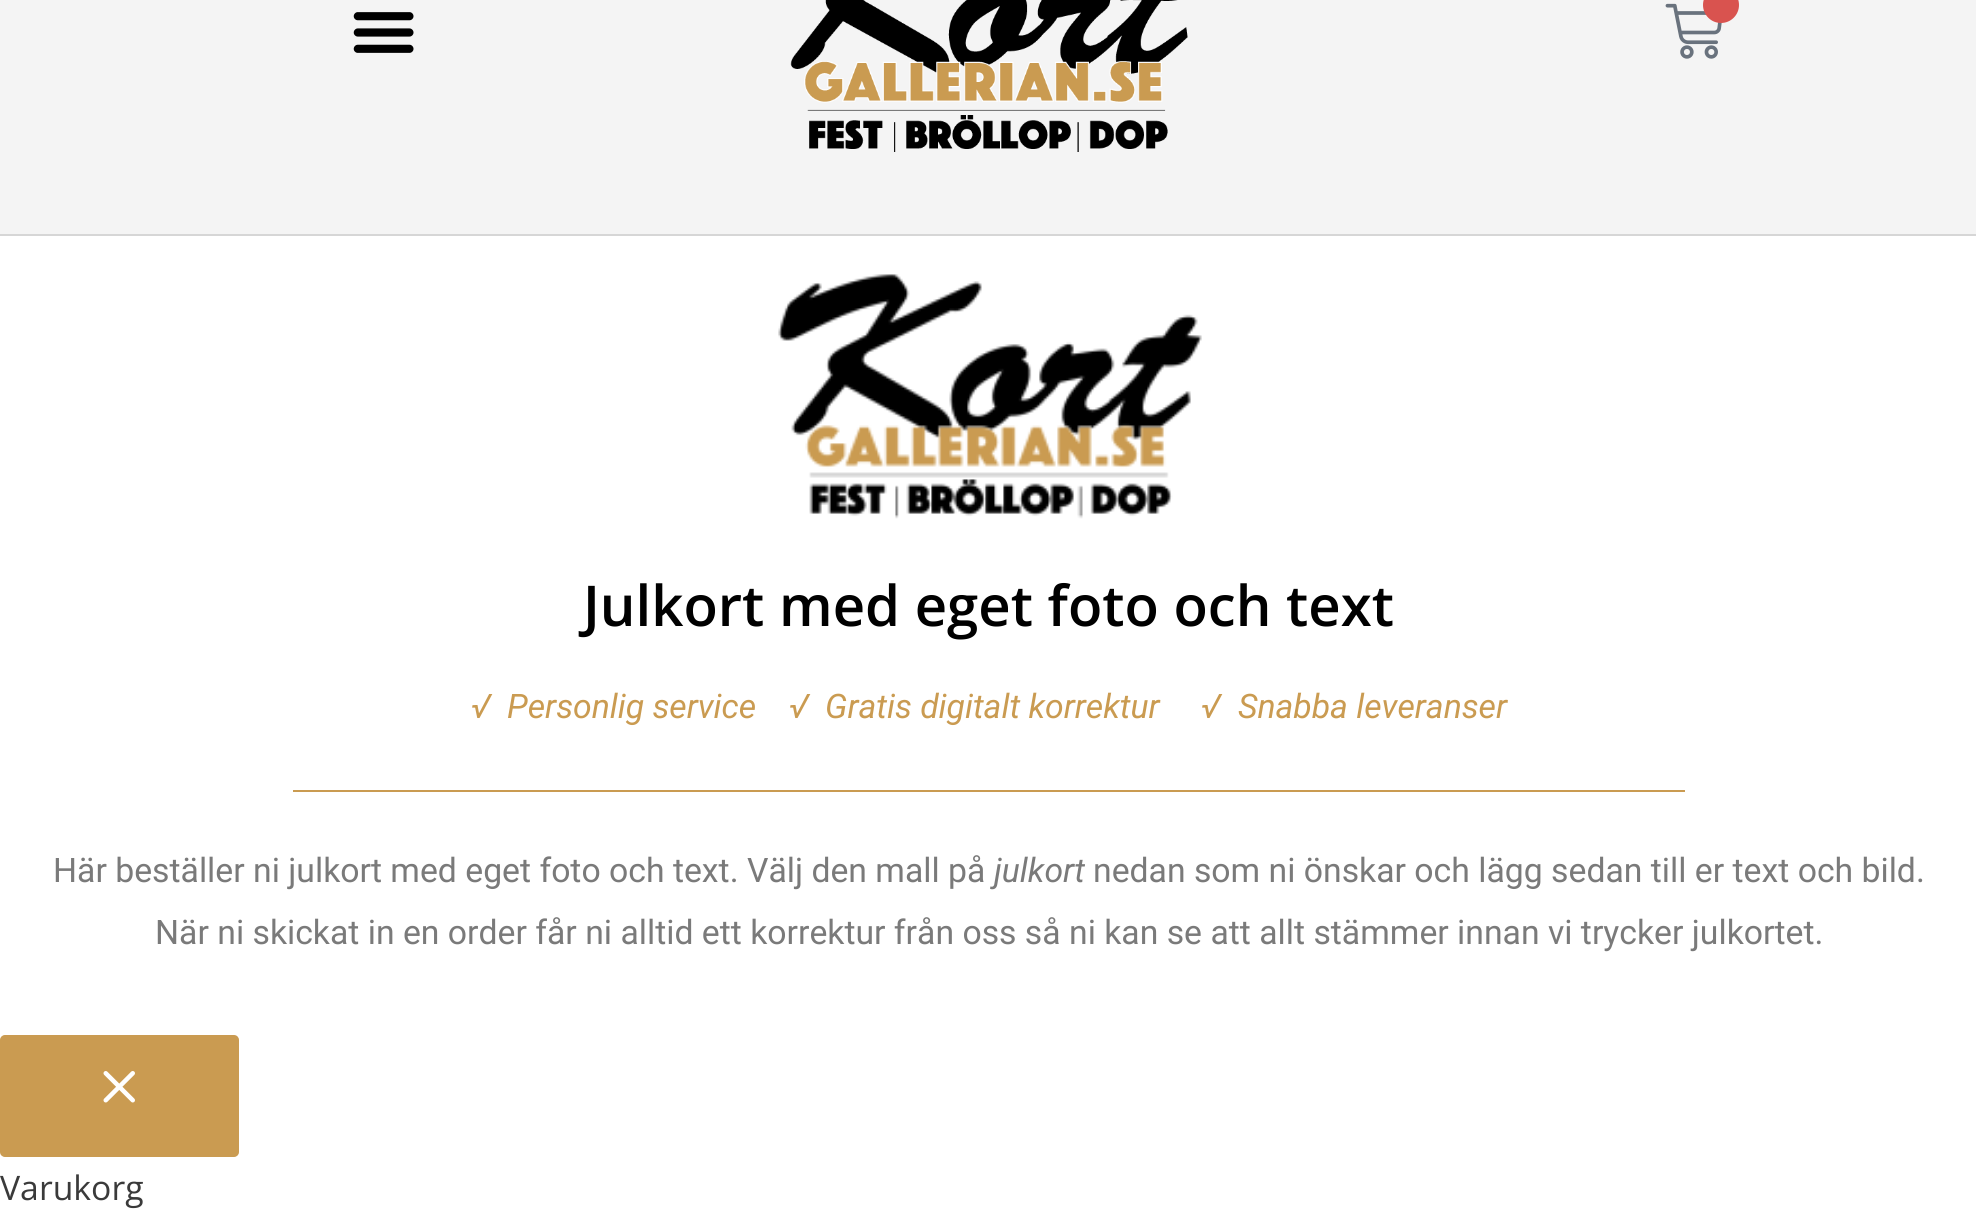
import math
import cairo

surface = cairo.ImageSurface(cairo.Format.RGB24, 1976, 1219)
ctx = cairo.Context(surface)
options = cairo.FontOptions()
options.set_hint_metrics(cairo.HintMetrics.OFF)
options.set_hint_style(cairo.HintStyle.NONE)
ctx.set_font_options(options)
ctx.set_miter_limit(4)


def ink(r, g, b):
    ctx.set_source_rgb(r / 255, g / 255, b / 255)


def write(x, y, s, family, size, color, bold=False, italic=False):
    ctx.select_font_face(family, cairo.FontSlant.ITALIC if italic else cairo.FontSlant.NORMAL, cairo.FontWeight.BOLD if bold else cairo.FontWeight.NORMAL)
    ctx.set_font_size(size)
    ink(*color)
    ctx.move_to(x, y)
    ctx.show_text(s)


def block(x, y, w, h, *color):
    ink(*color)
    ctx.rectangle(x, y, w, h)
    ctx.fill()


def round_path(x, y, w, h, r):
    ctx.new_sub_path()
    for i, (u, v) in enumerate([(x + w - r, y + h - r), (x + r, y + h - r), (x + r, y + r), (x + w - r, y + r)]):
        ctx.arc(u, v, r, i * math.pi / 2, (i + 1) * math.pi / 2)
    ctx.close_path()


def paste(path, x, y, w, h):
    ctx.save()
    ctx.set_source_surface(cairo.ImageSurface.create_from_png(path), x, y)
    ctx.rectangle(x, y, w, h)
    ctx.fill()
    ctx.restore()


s1 = dict(family="Open Sans SemiBold", size=56.25, color=(0, 0, 0))
s2 = dict(family="Roboto", size=33.75, color=(202, 155, 81), italic=True)
s3 = dict(family="Roboto", size=33.75, color=(122, 122, 122))
s4 = dict(family="Roboto", size=33.75, color=(122, 122, 122), italic=True)
s5 = dict(family="Open Sans", size=33.75, color=(58, 58, 58))

ink(255, 255, 255)
ctx.paint()
block(0, 0, 1976, 234, 244, 244, 244)
block(0, 234, 1976, 2, 214, 214, 214)
paste("pic1.png", 353, 12, 61, 41)
paste("pic2.png", 790, 0, 398, 152)
paste("pic3.png", 1665, 3, 57, 56)
ink(217, 83, 79)
ctx.arc(1721, 5, 18, 0, 2 * math.pi)
ctx.fill()
paste("pic4.png", 778, 274, 424, 245)
write(583, 626, "Julkort med eget foto och text", **s1)
write(471, 718, "√  Personlig service", **s2)
write(789, 718, "√  Gratis digitalt korrektur", **s2)
write(1201, 718, "√", **s2)
write(1238, 718, "Snabba leveranser", **s2)
block(293, 790, 1392, 2, 202, 155, 81)
write(53, 882, "Här beställer ni julkort med eget foto och text. Välj den mall på", **s3)
write(994, 882, "julkort", **s4)
write(1093, 882, "nedan som ni önskar och lägg sedan till er text och bild.", **s3)
write(155, 944, "När ni skickat in en order får ni alltid ett korrektur från oss så ni kan se att allt stämmer innan vi trycker julkortet.", **s3)
ink(202, 155, 81)
round_path(1, 1036, 237, 120, 4)
ctx.fill_preserve()
ctx.stroke()
paste("pic5.png", 103, 1071, 32, 32)
write(0, 1200, "Varukorg", **s5)
surface.write_to_png("screenshot.png")
